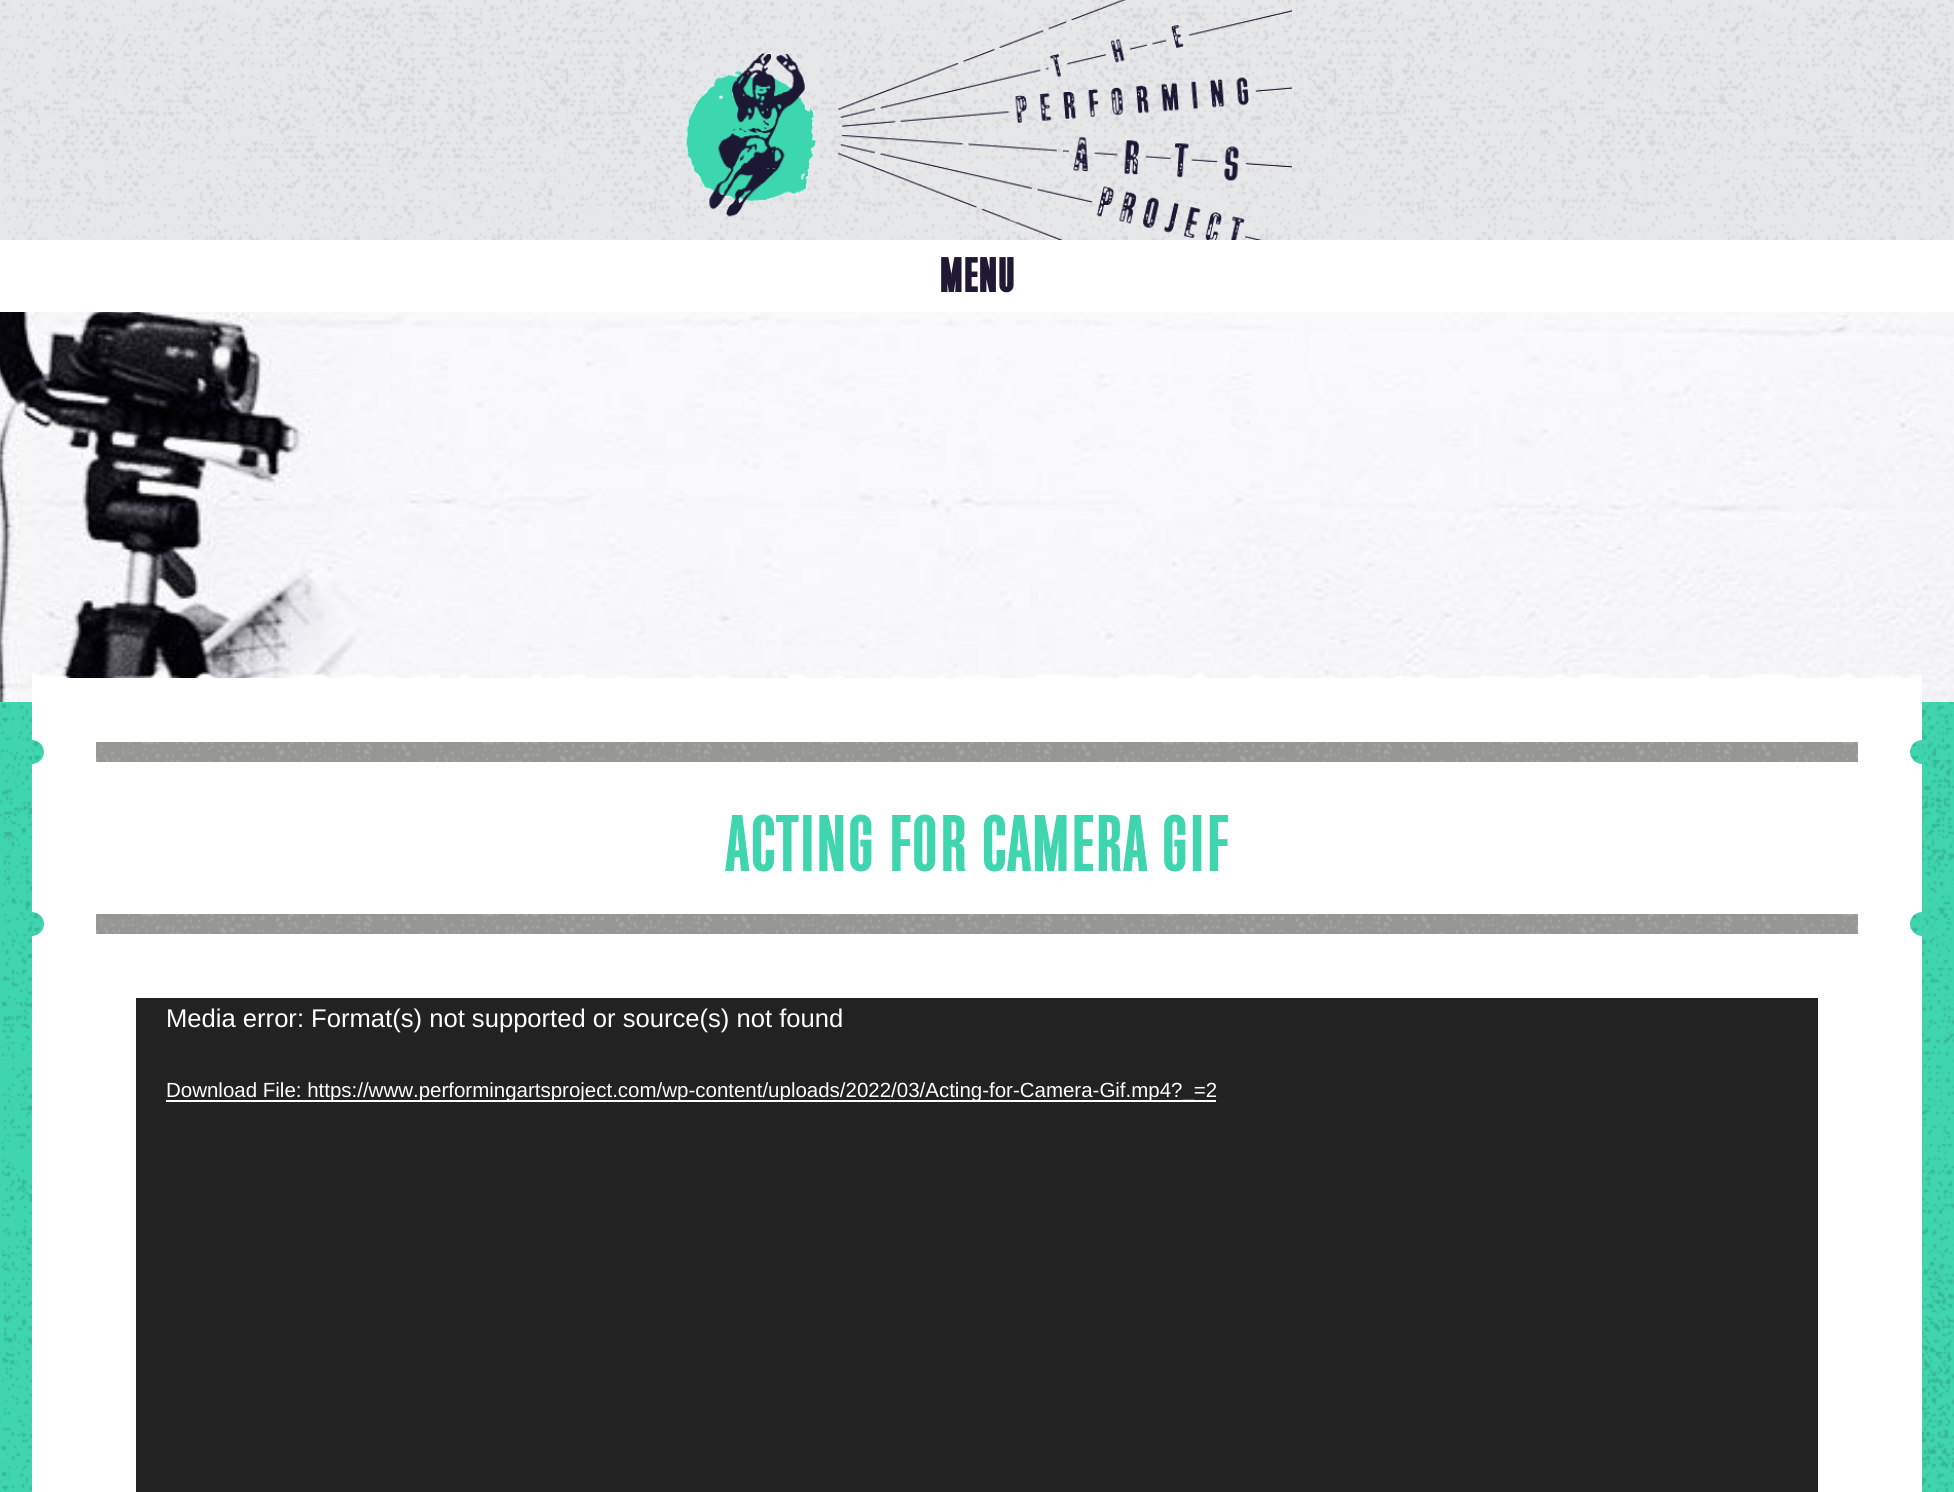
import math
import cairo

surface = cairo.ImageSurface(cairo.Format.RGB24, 1954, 1492)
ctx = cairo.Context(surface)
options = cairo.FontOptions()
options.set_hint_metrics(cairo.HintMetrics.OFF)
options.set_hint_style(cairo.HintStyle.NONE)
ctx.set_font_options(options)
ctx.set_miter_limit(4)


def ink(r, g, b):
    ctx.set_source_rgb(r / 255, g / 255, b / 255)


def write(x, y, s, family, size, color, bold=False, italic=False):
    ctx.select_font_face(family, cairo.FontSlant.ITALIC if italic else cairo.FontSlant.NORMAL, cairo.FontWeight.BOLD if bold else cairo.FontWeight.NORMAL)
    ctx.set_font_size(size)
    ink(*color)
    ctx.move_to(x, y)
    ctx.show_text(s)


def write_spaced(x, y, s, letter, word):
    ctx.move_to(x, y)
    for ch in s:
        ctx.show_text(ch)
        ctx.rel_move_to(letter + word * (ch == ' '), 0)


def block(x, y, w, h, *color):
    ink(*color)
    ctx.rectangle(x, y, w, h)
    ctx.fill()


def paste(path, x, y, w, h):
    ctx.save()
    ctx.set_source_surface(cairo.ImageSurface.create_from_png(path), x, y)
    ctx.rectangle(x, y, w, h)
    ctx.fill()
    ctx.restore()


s1 = dict(family="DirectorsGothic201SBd", size=80, color=(63, 213, 174))
s2 = dict(family="Liberation Sans", size=25.6, color=(255, 255, 255))
s3 = dict(family="Liberation Sans", size=20.48, color=(255, 255, 255))

ink(63, 213, 174)
ctx.paint()
block(0, 0, 1954, 240, 230, 231, 232)
paste("pic1.png", 0, 0, 1954, 240)
paste("pic2.png", 685, 0, 607, 240)
block(0, 240, 1954, 72, 255, 255, 255)
ctx.select_font_face("DirectorsGothic201SBd", cairo.FontSlant.NORMAL, cairo.FontWeight.BOLD)
ctx.set_font_size(48)
ink(31, 25, 51)
write_spaced(939, 292, "MENU", 0.5, 0)
paste("pic3.png", 0, 312, 1954, 390)
paste("pic4.png", 0, 702, 1954, 790)
block(32, 678, 1890, 814, 255, 255, 255)
paste("pic5.png", 32, 672, 1890, 6)
block(96, 742, 1762, 20, 150, 150, 147)
paste("pic6.png", 96, 742, 1762, 20)
ink(63, 213, 174)
ctx.new_path()
ctx.move_to(32, 740)
ctx.curve_to(38.5, 740, 44, 745.5, 44, 752)
ctx.curve_to(44, 758.5, 38.5, 764, 32, 764)
ctx.close_path()
ctx.fill()
paste("pic7.png", 32, 741, 10, 23)
ctx.new_path()
ctx.move_to(1922, 740)
ctx.line_to(1922, 764)
ctx.curve_to(1915.5, 764, 1910, 758.5, 1910, 752)
ctx.curve_to(1910, 745.5, 1915.5, 740, 1922, 740)
ctx.close_path()
ctx.fill()
paste("pic8.png", 1910, 742, 12, 19)
write(725, 871, "ACTING FOR CAMERA GIF", **s1)
ctx.new_path()
ctx.move_to(32, 912)
ctx.curve_to(38.5, 912, 44, 917.5, 44, 924)
ctx.curve_to(44, 930.5, 38.5, 936, 32, 936)
ctx.close_path()
ctx.fill()
paste("pic9.png", 32, 913, 10, 23)
ctx.new_path()
ctx.move_to(1922, 912)
ctx.line_to(1922, 936)
ctx.curve_to(1915.5, 936, 1910, 930.5, 1910, 924)
ctx.curve_to(1910, 917.5, 1915.5, 912, 1922, 912)
ctx.close_path()
ctx.fill()
paste("pic8.png", 1910, 914, 12, 19)
block(96, 914, 1762, 20, 150, 150, 147)
paste("pic6.png", 96, 914, 1762, 20)
block(136, 998, 1682, 494, 34, 34, 34)
write(166, 1027, "Media error: Format(s) not supported or source(s) not found", **s2)
block(166, 1100, 1050, 2, 255, 255, 255)
write(166, 1097, "Download File: https://www.performingartsproject.com/wp-content/uploads/2022/03/Acting-for-Camera-Gif.mp4?_=2", **s3)
surface.write_to_png("screenshot.png")
